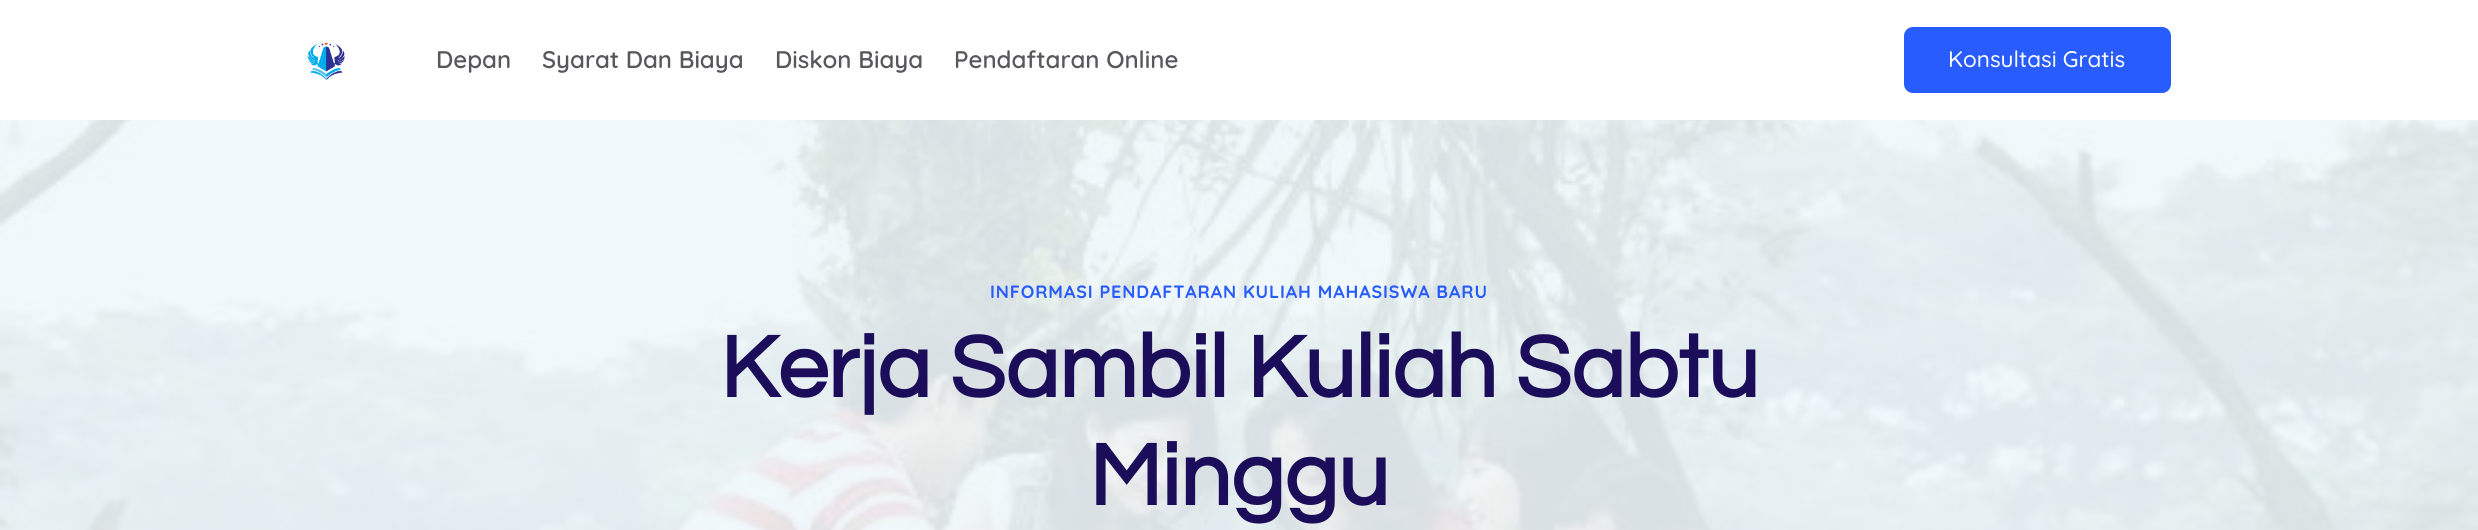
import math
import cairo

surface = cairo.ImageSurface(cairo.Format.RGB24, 2478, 530)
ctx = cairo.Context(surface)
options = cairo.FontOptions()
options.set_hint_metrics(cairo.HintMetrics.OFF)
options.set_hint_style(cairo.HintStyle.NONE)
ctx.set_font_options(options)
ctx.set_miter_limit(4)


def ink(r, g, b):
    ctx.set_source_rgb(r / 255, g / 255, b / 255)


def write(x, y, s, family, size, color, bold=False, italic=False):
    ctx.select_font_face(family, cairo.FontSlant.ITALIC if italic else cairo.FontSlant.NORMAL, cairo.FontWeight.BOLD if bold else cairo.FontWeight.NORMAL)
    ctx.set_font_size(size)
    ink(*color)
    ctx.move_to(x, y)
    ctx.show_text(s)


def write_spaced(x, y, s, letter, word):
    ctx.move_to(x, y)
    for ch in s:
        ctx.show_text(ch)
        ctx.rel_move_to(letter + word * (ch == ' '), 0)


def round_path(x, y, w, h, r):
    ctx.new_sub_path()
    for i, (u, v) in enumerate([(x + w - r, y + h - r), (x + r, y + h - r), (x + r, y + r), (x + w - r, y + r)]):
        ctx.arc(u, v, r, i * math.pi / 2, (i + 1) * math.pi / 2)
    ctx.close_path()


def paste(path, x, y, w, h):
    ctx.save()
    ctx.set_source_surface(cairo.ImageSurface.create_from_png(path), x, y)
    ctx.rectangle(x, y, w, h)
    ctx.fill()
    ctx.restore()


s1 = dict(family="Quicksand SemiBold", size=24, color=(87, 87, 93))
s2 = dict(family="Quicksand Medium", size=22.5, color=(255, 255, 255))
s3 = dict(family="Questrial", size=90, color=(28, 13, 90), bold=True)

ink(255, 255, 255)
ctx.paint()
paste("pic1.png", 307, 42, 38, 38)
write(436, 68, "Depan", **s1)
write(542, 68, "Syarat Dan Biaya", **s1)
write(775, 68, "Diskon Biaya", **s1)
write(954, 68, "Pendaftaran Online", **s1)
ink(41, 92, 255)
round_path(1904, 27, 267, 66, 9)
ctx.fill()
write(1948, 67, "Konsultasi Gratis", **s2)
paste("pic2.png", 0, 120, 2478, 410)
ctx.select_font_face("Quicksand", cairo.FontSlant.NORMAL, cairo.FontWeight.BOLD)
ctx.set_font_size(17.85)
ink(41, 92, 255)
write_spaced(990, 298, "INFORMASI PENDAFTARAN KULIAH MAHASISWA BARU", 0.9, 0)
write(720, 397, "Kerja Sambil Kuliah Sabtu", **s3)
write(1089, 505, "Minggu", **s3)
surface.write_to_png("screenshot.png")
